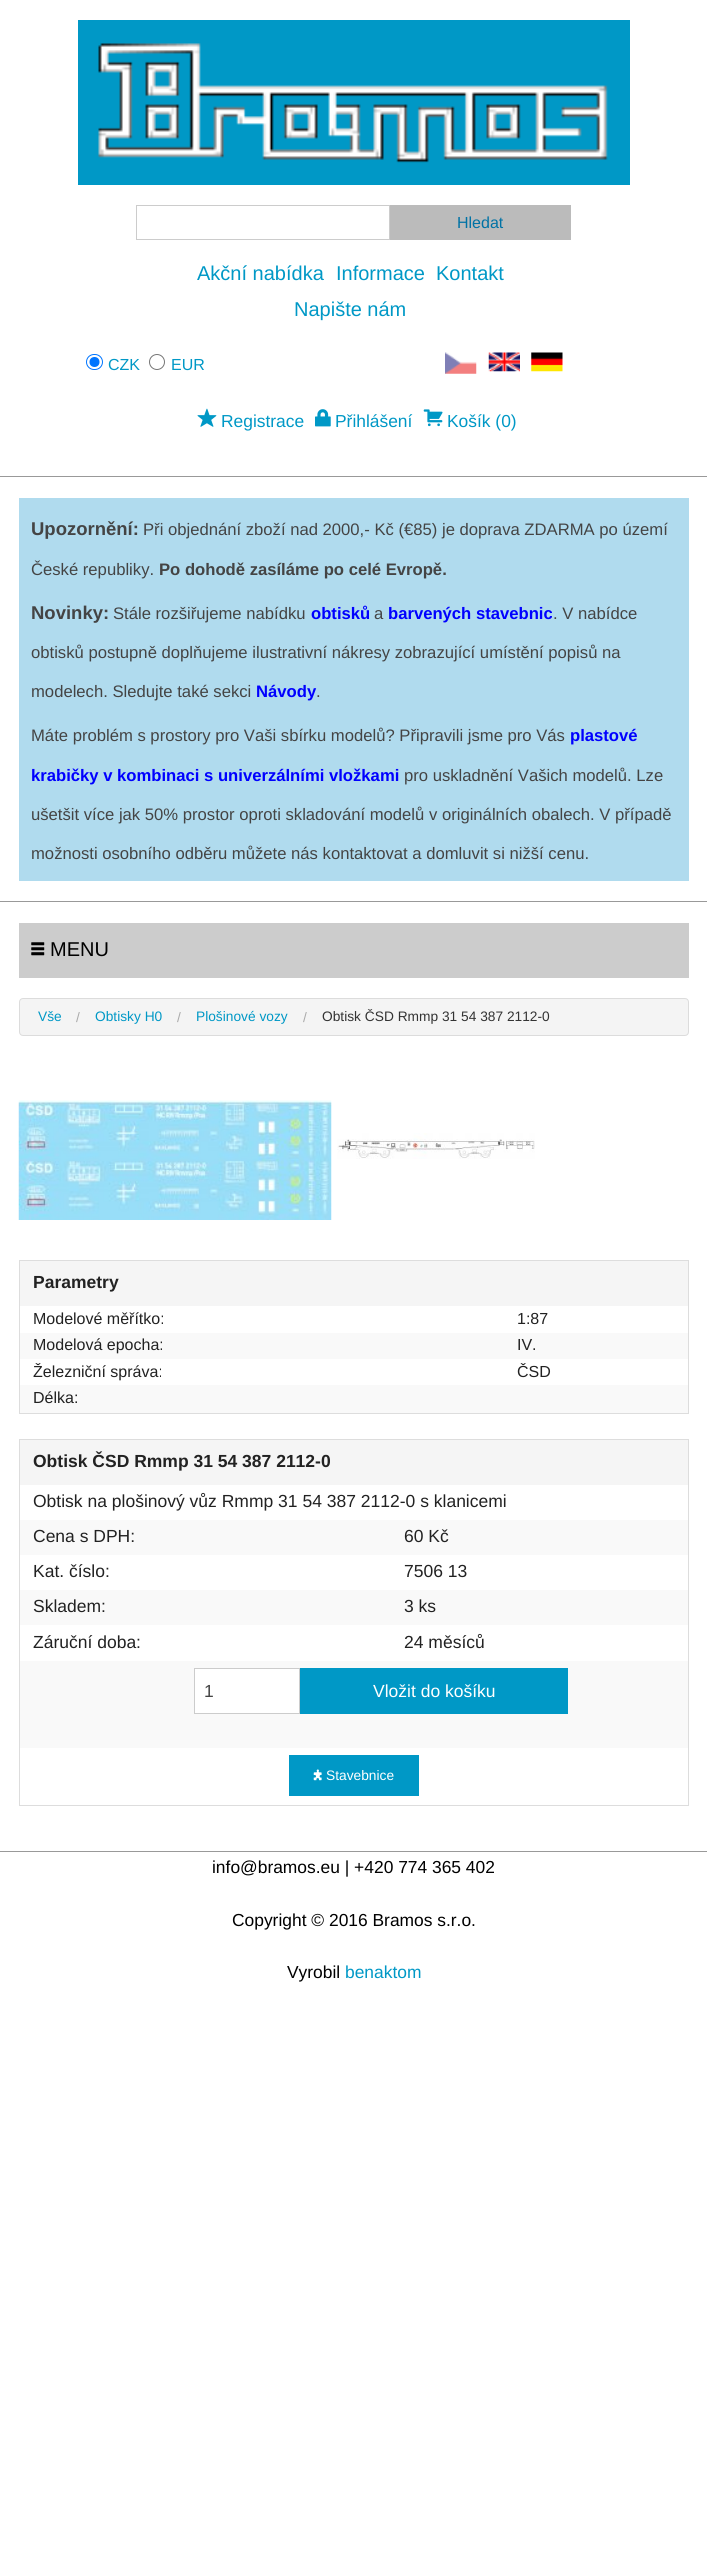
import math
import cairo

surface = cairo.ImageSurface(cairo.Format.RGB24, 707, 2553)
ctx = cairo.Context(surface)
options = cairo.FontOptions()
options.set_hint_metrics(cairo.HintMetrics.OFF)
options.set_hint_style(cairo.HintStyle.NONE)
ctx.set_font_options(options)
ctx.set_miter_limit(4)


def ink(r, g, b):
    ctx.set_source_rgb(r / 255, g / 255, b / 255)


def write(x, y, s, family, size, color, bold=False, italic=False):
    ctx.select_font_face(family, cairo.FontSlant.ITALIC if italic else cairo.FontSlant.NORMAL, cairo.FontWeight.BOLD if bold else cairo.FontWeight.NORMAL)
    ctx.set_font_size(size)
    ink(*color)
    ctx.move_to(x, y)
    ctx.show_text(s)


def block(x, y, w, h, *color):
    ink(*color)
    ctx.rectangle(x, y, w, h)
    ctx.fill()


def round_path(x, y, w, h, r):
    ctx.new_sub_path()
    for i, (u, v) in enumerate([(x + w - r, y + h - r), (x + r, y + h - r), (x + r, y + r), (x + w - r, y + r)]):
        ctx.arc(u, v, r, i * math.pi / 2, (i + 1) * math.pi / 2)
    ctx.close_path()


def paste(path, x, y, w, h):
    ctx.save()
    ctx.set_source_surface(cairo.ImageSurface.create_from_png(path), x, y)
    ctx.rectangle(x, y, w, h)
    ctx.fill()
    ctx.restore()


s1 = dict(family="Liberation Sans", size=16, color=(0, 114, 165))
s2 = dict(family="Liberation Sans", size=20, color=(0, 152, 198))
s3 = dict(family="Liberation Sans", size=16, color=(0, 152, 198))
s4 = dict(family="Liberation Sans", size=17.4, color=(0, 152, 198))
s5 = dict(family="Liberation Sans", size=18.5, color=(68, 68, 68), bold=True)
s6 = dict(family="Liberation Sans", size=16.65, color=(68, 68, 68))
s7 = dict(family="Liberation Sans", size=16.65, color=(68, 68, 68), bold=True)
s8 = dict(family="Liberation Sans", size=16.65, color=(0, 0, 255), bold=True)
s9 = dict(family="Liberation Sans", size=20, color=(0, 0, 0))
s10 = dict(family="Liberation Sans", size=13.75, color=(0, 152, 198))
s11 = dict(family="Liberation Sans", size=13.75, color=(170, 170, 170))
s12 = dict(family="Liberation Sans", size=13.75, color=(51, 51, 51))
s13 = dict(family="Liberation Sans", size=17.5, color=(34, 34, 34), bold=True)
s14 = dict(family="Liberation Sans", size=16, color=(34, 34, 34))
s15 = dict(family="Liberation Sans", size=17.5, color=(34, 34, 34))
s16 = dict(family="Liberation Sans", size=17.5, color=(68, 68, 68))
s17 = dict(family="Liberation Sans", size=17.5, color=(255, 255, 255))
s18 = dict(family="Liberation Sans", size=13.75, color=(255, 255, 255))
s19 = dict(family="Liberation Sans", size=17.4, color=(0, 0, 0))

ink(255, 255, 255)
ctx.paint()
block(78, 20, 552, 165, 0, 152, 198)
paste("pic1.png", 98, 43, 510, 120)
ctx.rectangle(136.5, 205.5, 253, 34)
ink(204, 204, 204)
ctx.set_line_width(1)
ctx.stroke()
block(390, 205, 181, 35, 187, 187, 187)
write(457, 228, "Hledat", **s1)
write(197, 280, "Akční nabídka", **s2)
write(336, 280, "Informace", **s2)
write(436, 280, "Kontakt", **s2)
write(294, 316, "Napište nám", **s2)
round_path(86.5, 354.5, 16, 15, 7.5)
ink(0, 117, 255)
ctx.stroke()
ctx.arc(94.5, 362, 5, 0, 2 * math.pi)
ctx.fill()
write(108, 370, "CZK", **s3)
ctx.new_path()
ctx.arc(157, 362, 7.5, 0, 2 * math.pi)
ink(118, 118, 118)
ctx.stroke()
write(171, 370, "EUR", **s3)
paste("pic2.png", 445, 352, 32, 22)
paste("pic3.png", 488, 352, 32, 20)
paste("pic4.png", 531, 352, 32, 20)
paste("pic5.png", 197, 408, 20, 19)
write(221, 427, "Registrace", **s4)
paste("pic6.png", 315, 409, 16, 18)
write(335, 427, "Přihlášení", **s4)
paste("pic7.png", 423, 409, 20, 18)
write(447, 427, "Košík (0)", **s4)
block(0, 476, 707, 1, 153, 153, 153)
block(19, 498, 670, 383, 176, 219, 238)
write(31, 535, "Upozornění:", **s5)
write(143, 535, "Při objednání zboží nad 2000,- Kč (€85) je doprava ZDARMA po území", **s6)
write(31, 575, "České republiky.", **s6)
write(159, 575, "Po dohodě zasíláme po celé Evropě.", **s7)
write(31, 619, "Novinky:", **s5)
write(113, 619, "Stále rozšiřujeme nabídku", **s6)
write(311, 619, "obtisků", **s8)
write(374, 619, "a", **s6)
write(388, 619, "barvených stavebnic", **s8)
write(553, 619, ". V nabídce", **s6)
write(31, 658, "obtisků postupně doplňujeme ilustrativní nákresy zobrazující umístění popisů na", **s6)
write(31, 697, "modelech. Sledujte také sekci", **s6)
write(256, 697, "Návody", **s8)
write(316, 697, ".", **s6)
write(31, 741, "Máte problém s prostory pro Vaši sbírku modelů? Připravili jsme pro Vás", **s6)
write(570, 741, "plastové", **s8)
write(31, 781, "krabičky v kombinaci s univerzálními vložkami", **s8)
write(404, 781, "pro uskladnění Vašich modelů. Lze", **s6)
write(31, 820, "ušetšit více jak 50% prostor oproti skladování modelů v originálních obalech. V případě", **s6)
write(31, 859, "možnosti osobního odběru můžete nás kontaktovat a domluvit si nižší cenu.", **s6)
block(0, 901, 707, 1, 153, 153, 153)
block(19, 923, 670, 55, 204, 204, 204)
paste("pic8.png", 31, 942, 14, 14)
write(50, 956, "MENU", **s9)
ink(244, 244, 244)
round_path(19.5, 998.5, 669, 37, 3.5)
ctx.fill_preserve()
ink(220, 220, 220)
ctx.stroke()
write(38, 1021, "Vše", **s10)
write(76, 1022, "/", **s11)
write(95, 1021, "Obtisky H0", **s10)
write(177, 1022, "/", **s11)
write(196, 1021, "Plošinové vozy", **s10)
write(303, 1022, "/", **s11)
write(322, 1021, "Obtisk ČSD Rmmp 31 54 387 2112-0", **s12)
paste("pic9.png", 18, 1100, 314, 120)
paste("pic10.png", 337, 1133, 198, 26)
block(19, 1260, 670, 1, 221, 221, 221)
block(688, 1260, 1, 154, 221, 221, 221)
block(19, 1413, 670, 1, 221, 221, 221)
block(19, 1260, 1, 154, 221, 221, 221)
block(20, 1261, 668, 45, 245, 245, 245)
write(33, 1288, "Parametry", **s13)
write(33, 1324, "Modelové měřítko:", **s14)
write(517, 1324, "1:87", **s14)
block(20, 1333, 668, 26, 249, 249, 249)
write(33, 1350, "Modelová epocha:", **s14)
write(517, 1350, "IV.", **s14)
write(33, 1377, "Železniční správa:", **s14)
write(517, 1377, "ČSD", **s14)
block(20, 1385, 668, 28, 249, 249, 249)
write(33, 1403, "Délka:", **s14)
block(19, 1439, 670, 1, 221, 221, 221)
block(688, 1439, 1, 367, 221, 221, 221)
block(19, 1805, 670, 1, 221, 221, 221)
block(19, 1439, 1, 367, 221, 221, 221)
block(20, 1440, 668, 45, 245, 245, 245)
write(33, 1467, "Obtisk ČSD Rmmp 31 54 387 2112-0", **s13)
write(33, 1507, "Obtisk na plošinový vůz Rmmp 31 54 387 2112-0 s klanicemi", **s15)
block(20, 1520, 668, 35, 249, 249, 249)
write(33, 1542, "Cena s DPH:", **s15)
write(404, 1542, "60 Kč", **s15)
write(33, 1577, "Kat. číslo:", **s15)
write(404, 1577, "7506 13", **s15)
block(20, 1590, 668, 35, 249, 249, 249)
write(33, 1612, "Skladem:", **s15)
write(404, 1612, "3 ks", **s15)
write(33, 1648, "Záruční doba:", **s15)
write(404, 1648, "24 měsíců", **s15)
block(20, 1661, 668, 87, 249, 249, 249)
ink(255, 255, 255)
ctx.rectangle(194.5, 1668.5, 105, 45)
ctx.fill_preserve()
ink(204, 204, 204)
ctx.stroke()
write(204, 1697, "1", **s16)
block(300, 1668, 268, 46, 0, 152, 198)
write(373, 1697, "Vložit do košíku", **s17)
block(289, 1755, 130, 41, 0, 152, 198)
paste("pic11.png", 313, 1769, 9, 12)
write(326, 1780, "Stavebnice", **s18)
block(0, 1851, 707, 1, 153, 153, 153)
write(212, 1873, "info@bramos.eu | +420 774 365 402", **s19)
write(232, 1926, "Copyright © 2016 Bramos s.r.o.", **s19)
write(287, 1978, "Vyrobil", **s19)
write(345, 1978, "benaktom", **s4)
surface.write_to_png("screenshot.png")
